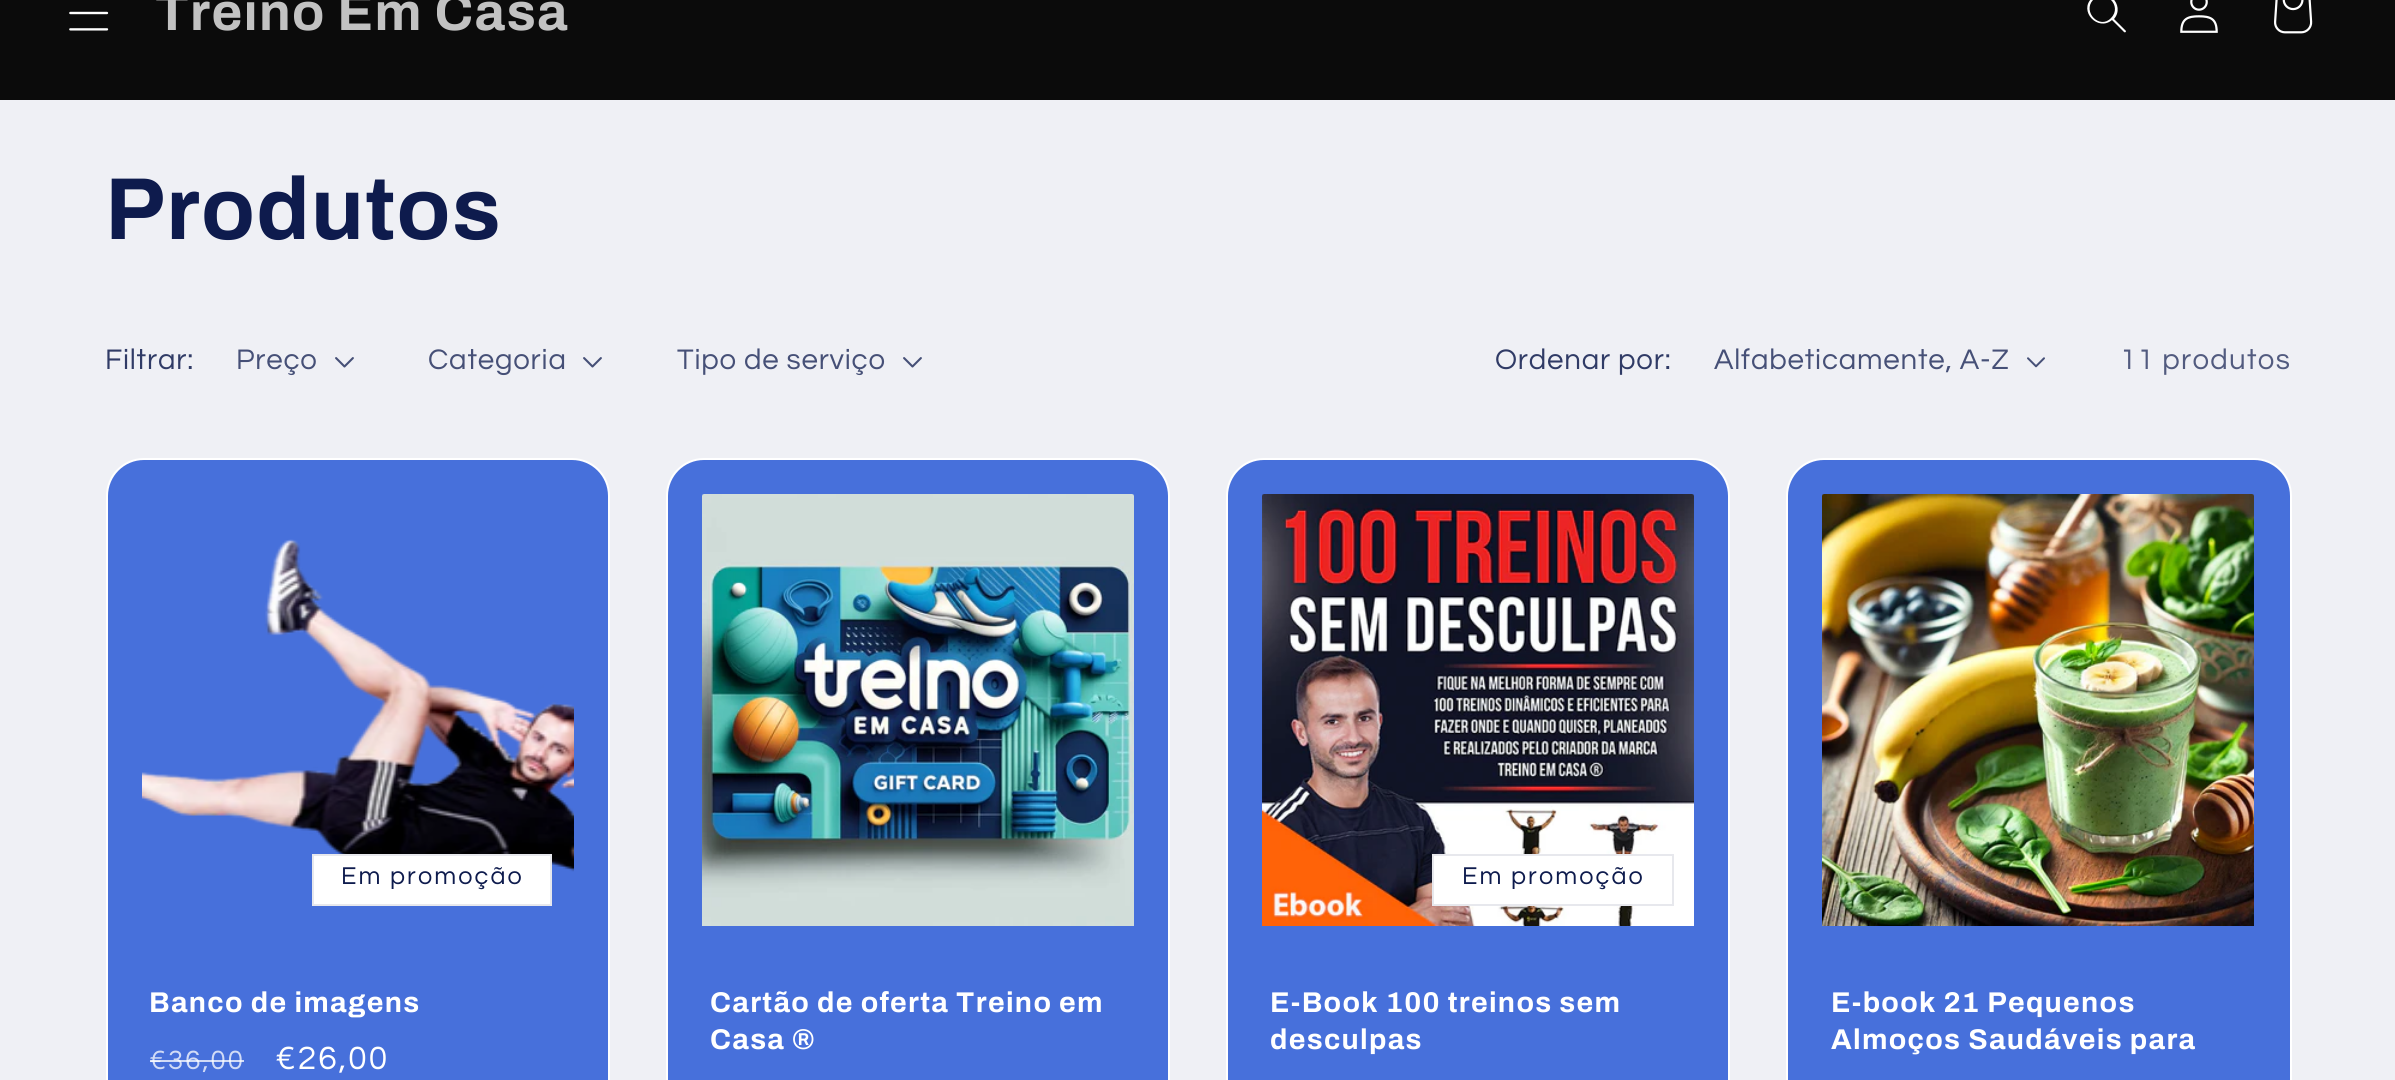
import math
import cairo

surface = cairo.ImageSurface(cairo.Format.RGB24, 2395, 1080)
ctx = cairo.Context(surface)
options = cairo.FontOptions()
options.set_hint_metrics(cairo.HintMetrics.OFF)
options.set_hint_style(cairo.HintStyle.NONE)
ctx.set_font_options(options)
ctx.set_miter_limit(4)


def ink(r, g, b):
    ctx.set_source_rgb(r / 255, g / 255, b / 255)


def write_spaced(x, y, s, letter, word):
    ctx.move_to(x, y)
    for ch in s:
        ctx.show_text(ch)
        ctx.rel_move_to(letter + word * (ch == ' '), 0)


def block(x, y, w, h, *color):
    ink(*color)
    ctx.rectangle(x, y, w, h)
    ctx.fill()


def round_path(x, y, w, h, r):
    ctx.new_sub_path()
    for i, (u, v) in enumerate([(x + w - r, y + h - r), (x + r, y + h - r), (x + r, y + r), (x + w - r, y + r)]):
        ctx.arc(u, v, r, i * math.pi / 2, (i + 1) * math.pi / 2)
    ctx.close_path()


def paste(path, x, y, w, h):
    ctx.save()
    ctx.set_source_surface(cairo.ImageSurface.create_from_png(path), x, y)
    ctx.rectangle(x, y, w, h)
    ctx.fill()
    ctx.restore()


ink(239, 240, 245)
ctx.paint()
block(0, 0, 2395, 100, 11, 11, 11)
paste("pic1.png", 69, 11, 40, 20)
ctx.select_font_face("Archivo", cairo.FontSlant.NORMAL, cairo.FontWeight.BOLD)
ctx.set_font_size(52.75)
ink(194, 194, 194)
write_spaced(155, 30, "Treino Em Casa", 1.3, 0)
ink(255, 255, 255)
ctx.set_fill_rule(cairo.FillRule.EVEN_ODD)
ctx.new_path()
ctx.move_to(2111, 18)
ctx.curve_to(2100, 30, 2082, 12, 2093, 0)
ctx.curve_to(2105, -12, 2123, 6, 2111, 18)
ctx.move_to(2112, 20)
ctx.curve_to(2098, 32, 2078, 11, 2092, -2)
ctx.curve_to(2106, -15, 2126, 5, 2114, 19)
ctx.line_to(2126, 31)
ctx.curve_to(2126, 32, 2125, 33, 2124, 32)
ctx.close_path()
ctx.fill()
paste("pic2.png", 2180, 0, 38, 33)
paste("pic3.png", 2274, 0, 39, 34)
ctx.set_font_size(88)
ink(14, 27, 77)
write_spaced(105, 239, "Produtos", 1.3, 0)
ctx.select_font_face("Questrial")
ctx.set_font_size(29.4)
ink(48, 59, 102)
write_spaced(105, 369, "Filtrar:", 0.8, 0)
ink(70, 80, 119)
write_spaced(236, 369, "Preço", 0.8, 0)
paste("pic4.png", 335, 357, 19, 11)
write_spaced(428, 369, "Categoria", 0.8, 0)
paste("pic4.png", 583, 357, 19, 11)
write_spaced(677, 369, "Tipo de serviço", 0.8, 0)
paste("pic4.png", 903, 357, 19, 11)
ink(48, 59, 102)
write_spaced(1495, 369, "Ordenar por:", 0.8, 0)
ink(70, 80, 119)
write_spaced(1714, 369, "Alfabeticamente, A-Z", 0.8, 0)
paste("pic5.png", 2027, 357, 18, 11)
ink(82, 91, 127)
write_spaced(2120, 369, "11 produtos", 1.25, 0)
ink(71, 112, 219)
round_path(107, 459, 502, 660, 37)
ctx.fill_preserve()
ink(255, 255, 255)
ctx.stroke()
paste("pic6.png", 142, 539, 432, 333)
ctx.rectangle(313, 855, 238, 50)
ctx.fill_preserve()
ink(231, 232, 237)
ctx.stroke()
ctx.set_font_size(25.25)
ink(14, 27, 77)
write_spaced(341, 884, "Em promoção", 2.1, 0)
ctx.select_font_face("Archivo", cairo.FontSlant.NORMAL, cairo.FontWeight.BOLD)
ctx.set_font_size(28.6)
ink(255, 255, 255)
write_spaced(149, 1012, "Banco de imagens", 1.3, 0)
ctx.select_font_face("Questrial")
ctx.set_font_size(27.5)
ink(209, 219, 246)
write_spaced(149, 1069, "€36,00", 2.1, 0)
ctx.set_source_rgba(1, 1, 1, 0.75)
ctx.rectangle(150, 1060, 94, 2)
ctx.fill()
ctx.set_font_size(33.5)
ink(255, 255, 255)
write_spaced(275, 1069, "€26,00", 2.1, 0)
ink(71, 112, 219)
round_path(667, 459, 502, 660, 37)
ctx.fill_preserve()
ink(255, 255, 255)
ctx.stroke()
paste("pic7.png", 702, 494, 432, 432)
ctx.select_font_face("Archivo", cairo.FontSlant.NORMAL, cairo.FontWeight.BOLD)
ctx.set_font_size(28.6)
write_spaced(710, 1012, "Cartão de oferta Treino em", 1.3, 0)
write_spaced(710, 1049, "Casa ®", 1.3, 0)
ink(71, 112, 219)
round_path(1227, 459, 502, 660, 37)
ctx.fill_preserve()
ink(255, 255, 255)
ctx.stroke()
paste("pic8.png", 1262, 494, 432, 432)
block(1434, 856, 213, 48, 255, 255, 255)
ctx.rectangle(1433, 855, 240, 50)
ink(231, 232, 237)
ctx.stroke()
ctx.select_font_face("Questrial")
ctx.set_font_size(25.25)
ink(14, 27, 77)
write_spaced(1462, 884, "Em promoção", 2.1, 0)
ctx.select_font_face("Archivo", cairo.FontSlant.NORMAL, cairo.FontWeight.BOLD)
ctx.set_font_size(28.6)
ink(255, 255, 255)
write_spaced(1270, 1012, "E-Book 100 treinos sem", 1.3, 0)
write_spaced(1270, 1049, "desculpas", 1.3, 0)
ink(71, 112, 219)
round_path(1787, 459, 504, 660, 37)
ctx.fill_preserve()
ink(255, 255, 255)
ctx.stroke()
paste("pic9.png", 1822, 494, 432, 432)
write_spaced(1831, 1012, "E-book 21 Pequenos", 1.3, 0)
write_spaced(1831, 1049, "Almoços Saudáveis para", 1.3, 0)
surface.write_to_png("screenshot.png")
